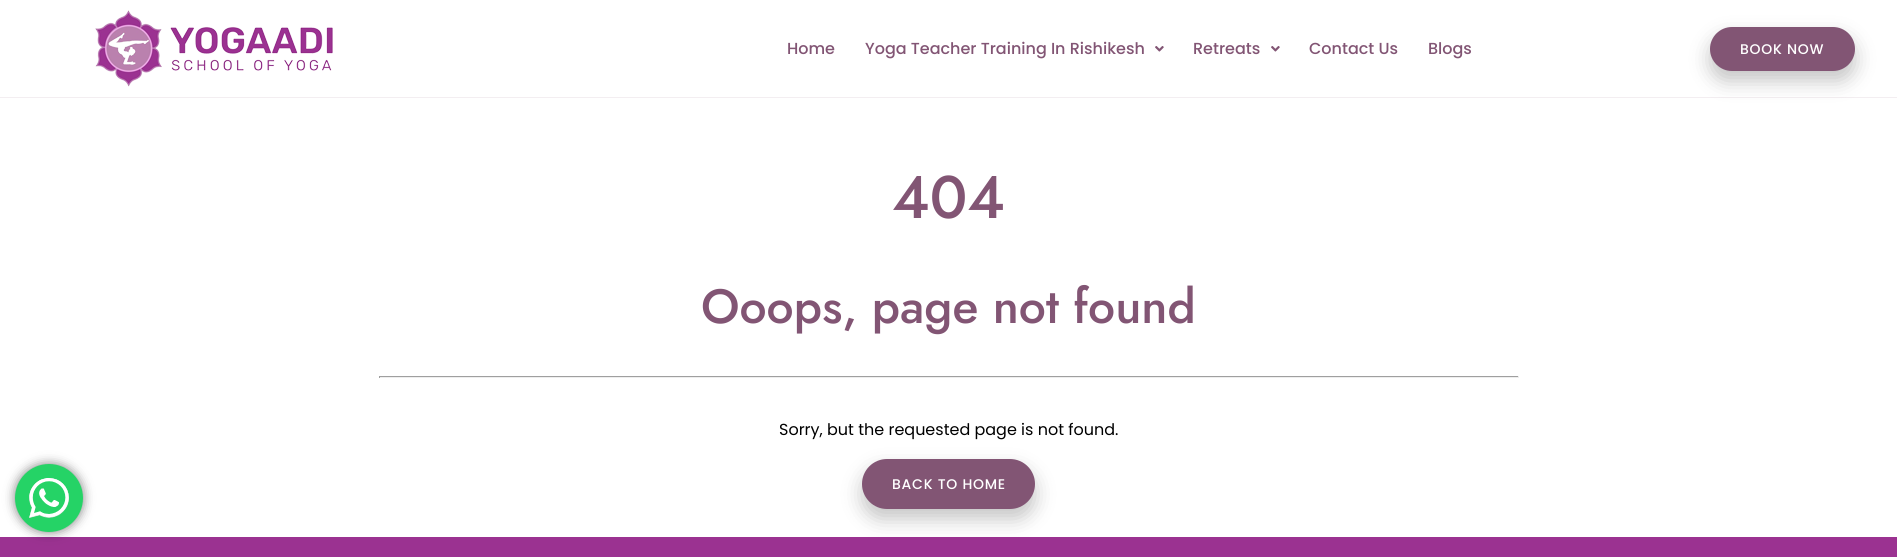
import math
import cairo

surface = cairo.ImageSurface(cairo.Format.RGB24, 1897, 557)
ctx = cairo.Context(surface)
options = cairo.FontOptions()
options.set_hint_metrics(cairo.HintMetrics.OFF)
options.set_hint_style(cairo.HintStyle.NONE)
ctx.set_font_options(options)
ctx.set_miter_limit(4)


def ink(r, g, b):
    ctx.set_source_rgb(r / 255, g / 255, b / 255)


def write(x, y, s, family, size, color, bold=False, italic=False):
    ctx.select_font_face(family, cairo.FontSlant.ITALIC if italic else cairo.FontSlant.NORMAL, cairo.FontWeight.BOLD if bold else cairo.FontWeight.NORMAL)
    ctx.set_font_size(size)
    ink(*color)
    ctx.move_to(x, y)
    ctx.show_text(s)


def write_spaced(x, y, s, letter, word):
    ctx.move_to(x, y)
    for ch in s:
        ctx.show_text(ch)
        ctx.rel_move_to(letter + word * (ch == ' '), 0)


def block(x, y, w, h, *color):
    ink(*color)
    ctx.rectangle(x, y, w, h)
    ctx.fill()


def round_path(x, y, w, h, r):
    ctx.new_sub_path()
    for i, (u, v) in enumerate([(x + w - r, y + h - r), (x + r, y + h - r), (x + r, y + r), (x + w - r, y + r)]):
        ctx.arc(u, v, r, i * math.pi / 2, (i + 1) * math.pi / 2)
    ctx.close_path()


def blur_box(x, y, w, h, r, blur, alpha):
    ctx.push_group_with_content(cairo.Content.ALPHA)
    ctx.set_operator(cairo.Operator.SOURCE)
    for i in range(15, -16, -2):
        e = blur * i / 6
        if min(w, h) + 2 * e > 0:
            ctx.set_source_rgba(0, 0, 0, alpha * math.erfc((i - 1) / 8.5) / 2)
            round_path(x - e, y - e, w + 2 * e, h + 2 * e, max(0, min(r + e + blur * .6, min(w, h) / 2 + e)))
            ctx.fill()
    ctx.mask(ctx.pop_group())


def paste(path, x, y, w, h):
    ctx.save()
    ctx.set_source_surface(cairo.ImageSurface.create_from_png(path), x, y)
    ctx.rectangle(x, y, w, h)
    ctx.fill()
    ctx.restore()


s1 = dict(family="Poppins Medium", size=16, color=(130, 85, 116))
s2 = dict(family="Jost Medium", size=60, color=(130, 85, 116))
s3 = dict(family="Jost Medium", size=48, color=(130, 85, 116))
s4 = dict(family="Poppins", size=16, color=(0, 0, 0))

ink(255, 255, 255)
ctx.paint()
ink(0, 0, 0)
blur_box(862, 469, 173, 50, 25, 10, 0.23)
block(0, 537, 1897, 20, 155, 50, 145)
ink(0, 0, 0)
blur_box(15, 464, 68, 68, 34, 5.5, 0.5)
ink(37, 211, 102)
ctx.arc(49, 498, 34, 0, 2 * math.pi)
ctx.fill()
paste("pic1.png", 29, 478, 40, 40)
block(0, 97, 1897, 1, 243, 238, 241)
paste("pic2.png", 95, 10, 238, 77)
write(787, 54, "Home", **s1)
write(865, 54, "Yoga Teacher Training In Rishikesh", **s1)
paste("pic3.png", 1155, 46, 9, 6)
write(1193, 54, "Retreats", **s1)
paste("pic3.png", 1271, 46, 9, 6)
write(1309, 54, "Contact Us", **s1)
write(1428, 54, "Blogs", **s1)
ink(0, 0, 0)
blur_box(1710, 37, 145, 44, 22, 10, 0.23)
ink(130, 85, 116)
round_path(1710, 27, 145, 44, 22)
ctx.fill()
ctx.set_font_size(14)
ink(255, 255, 255)
write_spaced(1740, 54, "BOOK NOW", 0.75, 0)
write(892, 218, "404", **s2)
write(701, 323, "Ooops, page not found", **s3)
block(379, 376, 1140, 1, 159, 159, 159)
block(1518, 376, 1, 2, 238, 238, 238)
block(379, 377, 1140, 1, 238, 238, 238)
block(379, 376, 1, 2, 159, 159, 159)
write(779, 435, "Sorry, but the requested page is not found.", **s4)
ink(130, 85, 116)
round_path(862, 459, 173, 50, 25)
ctx.fill()
ctx.select_font_face("Poppins Medium")
ctx.set_font_size(14)
ink(255, 255, 255)
write_spaced(892, 489, "BACK TO HOME", 0.75, 0)
surface.write_to_png("screenshot.png")
